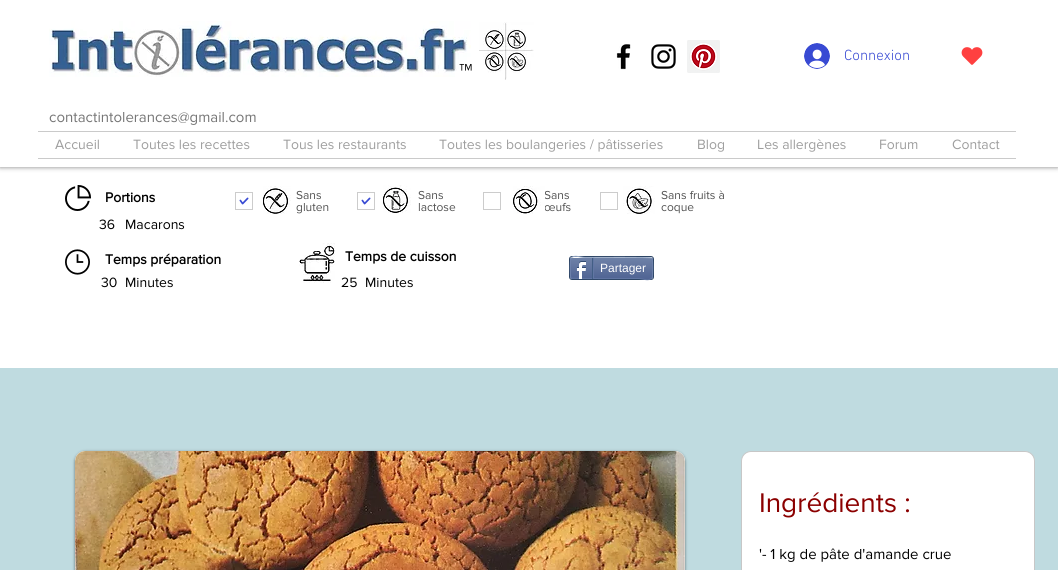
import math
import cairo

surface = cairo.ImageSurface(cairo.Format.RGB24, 1058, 570)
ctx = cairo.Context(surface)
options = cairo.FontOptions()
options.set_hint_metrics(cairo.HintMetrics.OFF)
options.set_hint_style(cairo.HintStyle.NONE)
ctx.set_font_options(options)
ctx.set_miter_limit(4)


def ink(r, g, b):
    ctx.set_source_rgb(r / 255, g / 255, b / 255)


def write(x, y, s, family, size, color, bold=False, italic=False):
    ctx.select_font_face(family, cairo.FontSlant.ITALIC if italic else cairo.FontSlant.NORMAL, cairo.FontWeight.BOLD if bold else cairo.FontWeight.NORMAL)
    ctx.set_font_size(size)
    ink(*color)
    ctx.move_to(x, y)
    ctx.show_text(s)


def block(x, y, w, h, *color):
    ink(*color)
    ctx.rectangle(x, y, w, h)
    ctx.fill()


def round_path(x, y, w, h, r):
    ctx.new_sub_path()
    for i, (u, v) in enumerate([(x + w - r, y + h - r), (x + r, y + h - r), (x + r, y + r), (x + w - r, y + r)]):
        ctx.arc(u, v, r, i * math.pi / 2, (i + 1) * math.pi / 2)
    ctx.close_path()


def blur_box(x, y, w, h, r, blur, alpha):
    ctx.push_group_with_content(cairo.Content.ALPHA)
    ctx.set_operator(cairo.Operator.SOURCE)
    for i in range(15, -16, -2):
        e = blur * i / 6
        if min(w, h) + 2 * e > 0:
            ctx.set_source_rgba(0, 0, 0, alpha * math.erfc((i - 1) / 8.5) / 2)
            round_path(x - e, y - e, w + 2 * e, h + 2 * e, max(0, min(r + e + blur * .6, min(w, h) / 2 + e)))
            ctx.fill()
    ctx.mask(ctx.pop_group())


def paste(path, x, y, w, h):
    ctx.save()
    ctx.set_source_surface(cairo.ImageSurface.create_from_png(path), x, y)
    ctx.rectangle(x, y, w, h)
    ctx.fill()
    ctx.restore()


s1 = dict(family="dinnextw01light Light", size=15, color=(56, 74, 211))
s2 = dict(family="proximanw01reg", size=30, color=(0, 0, 0))
s3 = dict(family="proximanw01reg", size=15, color=(118, 118, 118))
s4 = dict(family="proximanw01reg", size=14, color=(158, 158, 158))
s5 = dict(family="proximanw01reg", size=12, color=(82, 82, 82))
s6 = dict(family="proximanw01reg", size=14, color=(0, 0, 0), bold=True)
s7 = dict(family="proximanw01reg", size=14, color=(0, 0, 0))
s8 = dict(family="Liberation Sans", size=12, color=(255, 255, 255))
s9 = dict(family="proximanw01reg", size=28, color=(139, 0, 0))
s10 = dict(family="proximanw01reg", size=15, color=(0, 0, 0))

ink(191, 219, 224)
ctx.paint()
block(0, 167, 1058, 201, 255, 255, 255)
ink(0, 0, 0)
blur_box(0, 0, 1058, 167, 0, 2.5, 0.5)
block(0, 0, 1058, 167, 255, 255, 255)
paste("pic1.png", 49, 21, 422, 56)
paste("pic2.png", 479, 22, 55, 58)
paste("pic3.png", 616, 44, 15, 26)
paste("pic4.png", 651, 44, 25, 25)
paste("pic5.png", 687, 40, 33, 33)
paste("pic6.png", 804, 43, 26, 26)
write(844, 60, "Connexion", **s1)
paste("pic7.png", 961, 47, 22, 18)
write(459, 84, "™", **s2)
write(49, 122, "contactintolerances@gmail.com", **s3)
block(38, 131, 978, 1, 202, 202, 202)
block(38, 158, 978, 1, 202, 202, 202)
write(55, 149, "Accueil", **s4)
write(133, 149, "Toutes les recettes", **s4)
write(283, 149, "Tous les restaurants", **s4)
write(439, 149, "Toutes les boulangeries / pâtisseries", **s4)
write(697, 149, "Blog", **s4)
write(757, 149, "Les allergènes", **s4)
write(879, 149, "Forum", **s4)
write(952, 149, "Contact", **s4)
paste("pic8.png", 65, 185, 26, 26)
paste("pic9.png", 263, 186, 28, 28)
paste("pic10.png", 383, 185, 28, 28)
write(544, 199, "Sans", **s5)
write(544, 211, "œufs", **s5)
paste("pic11.png", 513, 186, 32, 28)
paste("pic12.png", 623, 186, 32, 28)
write(105, 202, "Portions", **s6)
ctx.rectangle(235.5, 192.5, 17, 17)
ink(204, 204, 204)
ctx.set_line_width(1)
ctx.stroke()
write(296, 199, "Sans", **s5)
write(296, 211, "gluten", **s5)
paste("pic13.png", 239, 197, 10, 8)
ctx.rectangle(357.5, 192.5, 17, 17)
ink(204, 204, 204)
ctx.stroke()
write(418, 199, "Sans", **s5)
write(418, 211, "lactose", **s5)
paste("pic13.png", 361, 197, 10, 8)
ctx.rectangle(483.5, 192.5, 17, 17)
ink(204, 204, 204)
ctx.stroke()
ctx.rectangle(600.5, 192.5, 17, 17)
ctx.stroke()
write(661, 199, "Sans fruits à", **s5)
write(661, 211, "coque", **s5)
write(99, 229, "36", **s7)
write(125, 229, "Macarons", **s7)
paste("pic14.png", 65, 249, 25, 26)
write(105, 264, "Temps préparation", **s6)
paste("pic15.png", 299, 243, 36, 40)
write(345, 261, "Temps de cuisson", **s6)
round_path(569.5, 256.5, 84, 23, 2.5)
ink(45, 69, 101)
ctx.stroke()
paste("pic16.png", 570, 258, 83, 21)
ctx.new_path()
ctx.move_to(571, 258)
ctx.curve_to(574.5, 254.5, 580.5, 257.5, 585, 257.5)
ctx.curve_to(592, 257.5, 651, 257, 652, 258)
ink(154, 171, 198)
ctx.stroke()
ctx.new_path()
ctx.move_to(652, 258)
ctx.curve_to(653, 258.5, 653, 277.5, 652, 278)
ink(111, 131, 173)
ctx.stroke()
ctx.new_path()
ctx.move_to(652, 278)
ctx.curve_to(648.5, 281.5, 642.5, 278.5, 638, 278.5)
ctx.curve_to(631, 278.5, 572, 279, 571, 278)
ink(97, 118, 163)
ctx.stroke()
ctx.new_path()
ctx.move_to(571, 278)
ctx.curve_to(570, 277.5, 570, 258.5, 571, 258)
ink(111, 131, 173)
ctx.stroke()
paste("pic17.png", 576, 261, 10, 18)
block(592, 258, 1, 21, 66, 94, 133)
write(600, 272, "Partager", **s8)
block(593, 258, 1, 20, 97, 118, 163)
write(101, 287, "30", **s7)
write(125, 287, "Minutes", **s7)
write(341, 287, "25", **s7)
write(365, 287, "Minutes", **s7)
ink(0, 0, 0)
blur_box(75, 452, 610, 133, 10, 1.5, 0.5)
ink(255, 255, 255)
round_path(75, 451, 610, 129, 10)
ctx.fill()
paste("pic18.png", 75, 451, 610, 119)
round_path(741.5, 451.5, 293, 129, 9.5)
ctx.fill_preserve()
ink(199, 199, 199)
ctx.stroke()
write(759, 512, "Ingrédients :", **s9)
write(759, 559, "'- 1 kg de pâte d'amande crue", **s10)
surface.write_to_png("screenshot.png")
